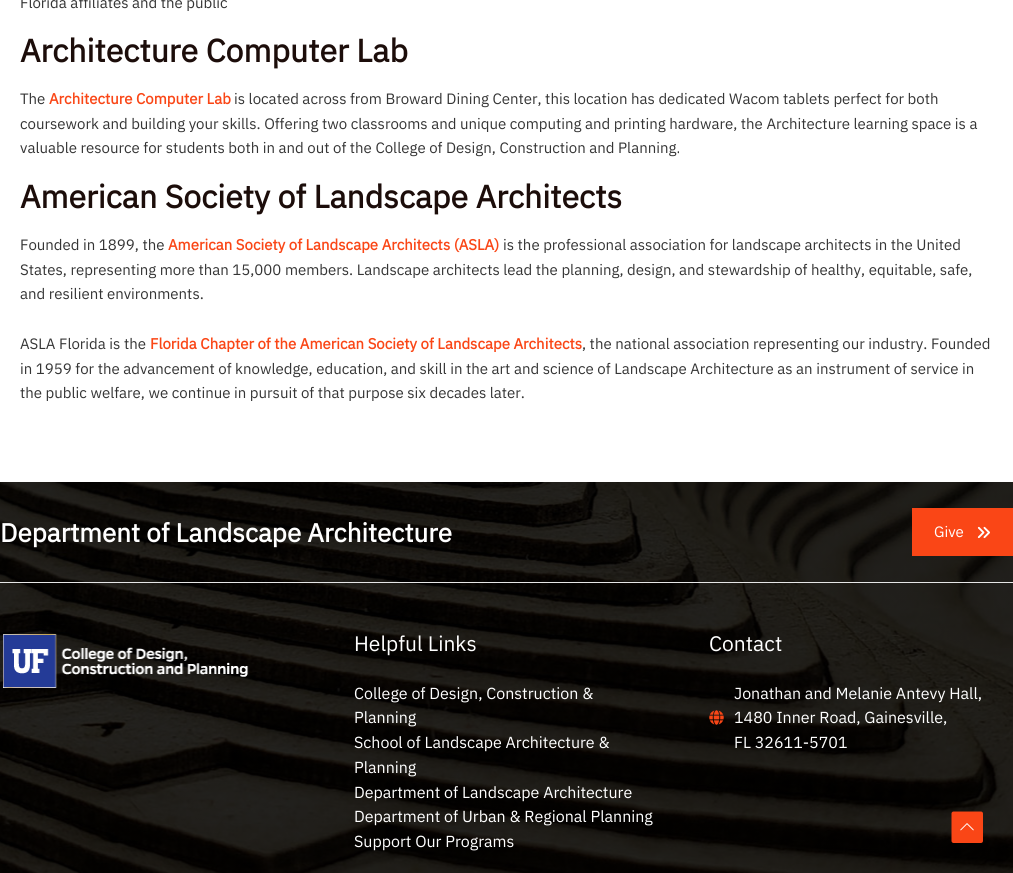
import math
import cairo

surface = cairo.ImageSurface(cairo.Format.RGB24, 1013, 873)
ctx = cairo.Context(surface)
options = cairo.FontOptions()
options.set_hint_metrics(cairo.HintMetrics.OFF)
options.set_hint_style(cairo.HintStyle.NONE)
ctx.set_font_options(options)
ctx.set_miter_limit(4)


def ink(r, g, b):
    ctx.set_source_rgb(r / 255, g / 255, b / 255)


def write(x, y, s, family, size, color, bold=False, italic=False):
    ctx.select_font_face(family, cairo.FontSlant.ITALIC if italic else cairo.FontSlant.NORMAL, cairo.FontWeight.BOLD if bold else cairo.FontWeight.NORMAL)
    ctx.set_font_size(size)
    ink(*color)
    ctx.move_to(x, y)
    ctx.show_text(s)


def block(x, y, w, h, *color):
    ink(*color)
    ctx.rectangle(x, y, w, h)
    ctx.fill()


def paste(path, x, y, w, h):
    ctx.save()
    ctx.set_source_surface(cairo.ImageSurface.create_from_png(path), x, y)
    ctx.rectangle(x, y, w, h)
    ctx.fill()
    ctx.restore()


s1 = dict(family="IBM Plex Sans", size=15, color=(53, 53, 53))
s2 = dict(family="IBM Plex Sans", size=32, color=(28, 13, 10), bold=True)
s3 = dict(family="IBM Plex Sans", size=15, color=(250, 70, 22), bold=True)
s4 = dict(family="IBM Plex Sans", size=26, color=(255, 255, 255), bold=True)
s5 = dict(family="IBM Plex Sans", size=15, color=(255, 255, 255))
s6 = dict(family="IBM Plex Sans", size=21, color=(255, 255, 255))
s7 = dict(family="IBM Plex Sans", size=16, color=(255, 255, 255))

ink(255, 255, 255)
ctx.paint()
write(20, 8, "Florida affiliates and the public", **s1)
write(20, 62, "Architecture Computer Lab", **s2)
write(20, 104, "The", **s1)
write(49, 104, "Architecture Computer Lab", **s3)
write(234, 104, "is located across from Broward Dining Center, this location has dedicated Wacom tablets perfect for both", **s1)
write(20, 129, "coursework and building your skills. Offering two classrooms and unique computing and printing hardware, the Architecture learning space is a", **s1)
write(20, 153, "valuable resource for students both in and out of the College of Design, Construction and Planning.", **s1)
write(20, 208, "American Society of Landscape Architects", **s2)
write(20, 250, "Founded in 1899, the", **s1)
write(168, 250, "American Society of Landscape Architects (ASLA)", **s3)
write(503, 250, "is the professional association for landscape architects in the United", **s1)
write(20, 275, "States, representing more than 15,000 members. Landscape architects lead the planning, design, and stewardship of healthy, equitable, safe,", **s1)
write(20, 299, "and resilient environments.", **s1)
write(20, 349, "ASLA Florida is the", **s1)
write(150, 349, "Florida Chapter of the American Society of Landscape Architects", **s3)
write(582, 349, ", the national association representing our industry. Founded", **s1)
write(20, 374, "in 1959 for the advancement of knowledge, education, and skill in the art and science of Landscape Architecture as an instrument of service in", **s1)
write(20, 398, "the public welfare, we continue in pursuit of that purpose six decades later.", **s1)
paste("pic1.png", 0, 482, 1013, 391)
write(0, 542, "Department of Landscape Architecture", **s4)
block(912, 508, 101, 48, 250, 70, 22)
write(934, 537, "Give", **s5)
paste("pic2.png", 977, 526, 13, 13)
block(0, 582, 1013, 1, 230, 230, 230)
paste("pic3.png", 3, 634, 246, 54)
write(354, 651, "Helpful Links", **s6)
write(354, 699, "College of Design, Construction &", **s7)
write(354, 723, "Planning", **s7)
write(354, 748, "School of Landscape Architecture &", **s7)
write(354, 773, "Planning", **s7)
write(354, 798, "Department of Landscape Architecture", **s7)
write(354, 822, "Department of Urban & Regional Planning", **s7)
write(354, 847, "Support Our Programs", **s7)
write(709, 651, "Contact", **s6)
paste("pic4.png", 709, 710, 15, 15)
write(734, 699, "Jonathan and Melanie Antevy Hall,", **s7)
write(734, 723, "1480 Inner Road, Gainesville,", **s7)
write(734, 748, "FL 32611-5701", **s7)
ink(250, 70, 22)
ctx.new_path()
ctx.move_to(981, 843)
ctx.line_to(953.5, 843)
ctx.curve_to(952.5, 843, 951.5, 842, 951.5, 841)
ctx.line_to(951.5, 813.5)
ctx.curve_to(951.5, 812.5, 952.5, 811.5, 953.5, 811.5)
ctx.line_to(981, 811.5)
ctx.curve_to(982, 811.5, 983, 812.5, 983, 813.5)
ctx.line_to(983, 841)
ctx.curve_to(983, 842, 982, 843, 981, 843)
ctx.close_path()
ctx.fill()
paste("pic5.png", 960, 823, 14, 8)
surface.write_to_png("screenshot.png")
